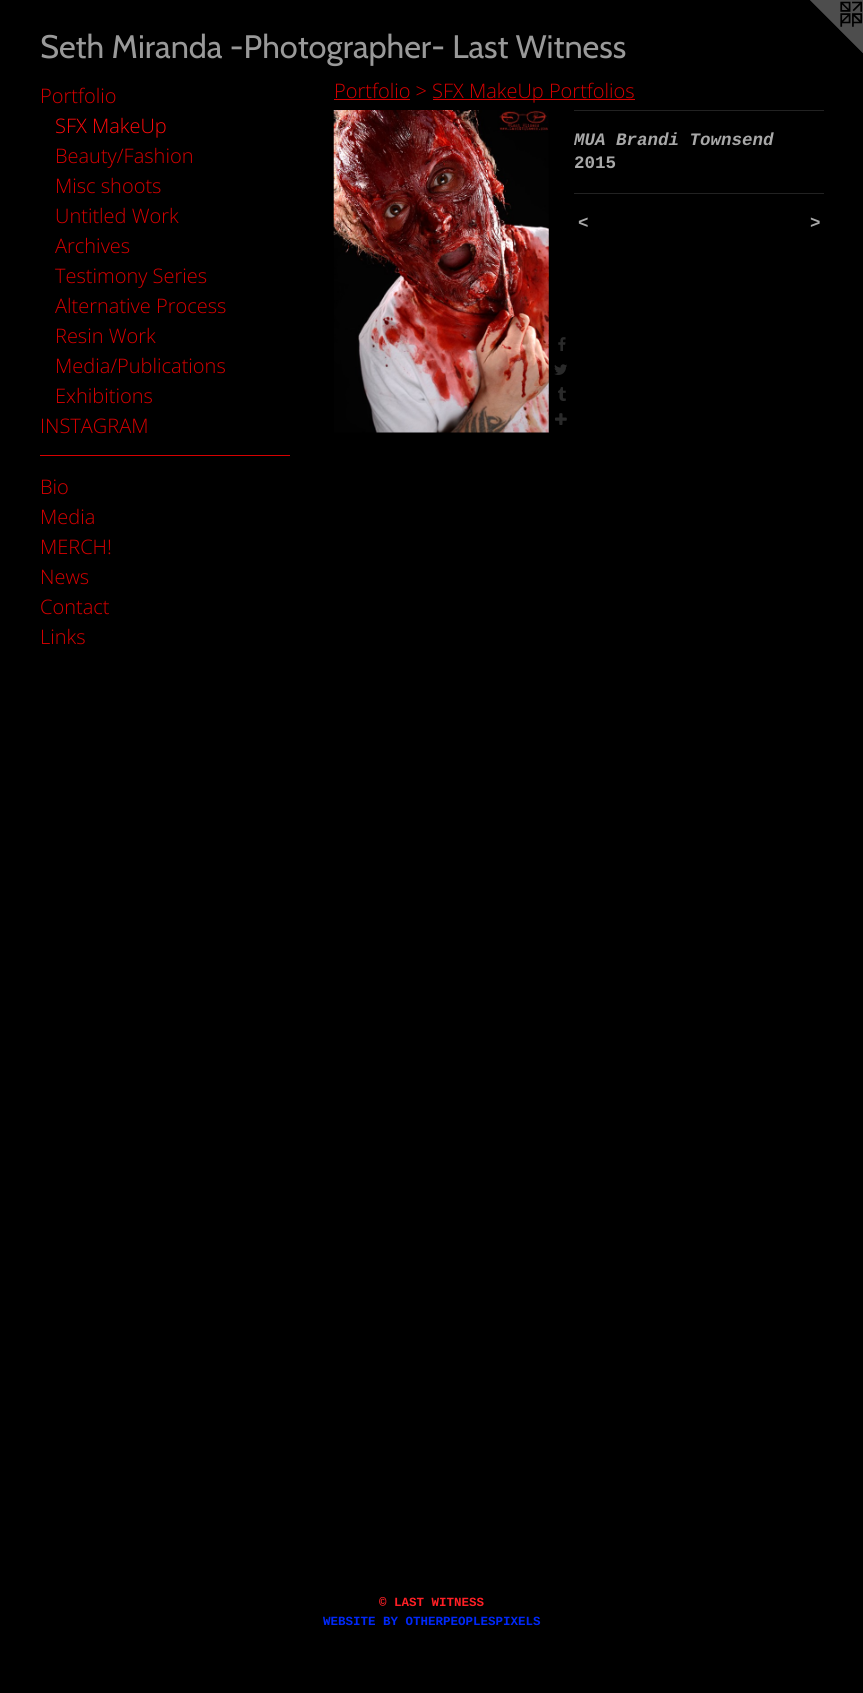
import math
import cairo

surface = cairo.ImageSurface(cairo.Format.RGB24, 863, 1693)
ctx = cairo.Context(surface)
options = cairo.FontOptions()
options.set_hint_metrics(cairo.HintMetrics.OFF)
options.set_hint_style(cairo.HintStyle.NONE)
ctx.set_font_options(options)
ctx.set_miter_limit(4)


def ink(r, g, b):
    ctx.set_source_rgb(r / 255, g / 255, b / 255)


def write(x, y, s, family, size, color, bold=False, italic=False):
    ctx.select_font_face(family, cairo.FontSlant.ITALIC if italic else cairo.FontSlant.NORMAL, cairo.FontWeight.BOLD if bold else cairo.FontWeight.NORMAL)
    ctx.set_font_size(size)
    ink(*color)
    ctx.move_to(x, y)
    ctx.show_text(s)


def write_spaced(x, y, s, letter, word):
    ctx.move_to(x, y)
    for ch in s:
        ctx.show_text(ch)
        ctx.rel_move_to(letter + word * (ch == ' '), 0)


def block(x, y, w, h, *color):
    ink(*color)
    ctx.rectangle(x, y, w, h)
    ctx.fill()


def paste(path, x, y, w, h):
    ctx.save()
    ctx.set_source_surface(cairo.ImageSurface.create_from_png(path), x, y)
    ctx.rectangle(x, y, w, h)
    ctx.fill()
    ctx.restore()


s1 = dict(family="Cabin", size=32.5, color=(153, 153, 153))
s2 = dict(family="Open Sans Light", size=20, color=(214, 0, 0))
s3 = dict(family="Open Sans Light", size=20, color=(255, 10, 10))
s4 = dict(family="Liberation Mono", size=17.5, color=(168, 168, 168), bold=True, italic=True)
s5 = dict(family="Liberation Mono", size=17.5, color=(168, 168, 168), bold=True)
s6 = dict(family="Liberation Mono", size=12.5, color=(255, 31, 37), bold=True)
s7 = dict(family="Liberation Mono", size=12.5, color=(0, 40, 250), bold=True)

ink(0, 0, 0)
ctx.paint()
write(40, 58, "Seth Miranda -Photographer- Last Witness", **s1)
paste("pic1.png", 810, 0, 53, 53)
write(40, 103, "Portfolio", **s2)
write(55, 133, "SFX MakeUp", **s3)
write(55, 163, "Beauty/Fashion", **s2)
write(55, 193, "Misc shoots", **s2)
write(55, 223, "Untitled Work", **s2)
write(55, 253, "Archives", **s2)
write(55, 283, "Testimony Series", **s2)
write(55, 313, "Alternative Process", **s2)
write(55, 343, "Resin Work", **s2)
write(55, 373, "Media/Publications", **s2)
write(55, 403, "Exhibitions", **s2)
write(40, 433, "INSTAGRAM", **s2)
block(40, 455, 250, 1, 214, 0, 0)
write(40, 494, "Bio", **s2)
write(40, 524, "Media", **s2)
write(40, 554, "MERCH!", **s2)
write(40, 584, "News", **s2)
write(40, 614, "Contact", **s2)
write(40, 644, "Links", **s2)
write(334, 98, "Portfolio >", **s2)
block(334, 99, 76, 1, 214, 0, 0)
block(433, 99, 202, 1, 214, 0, 0)
write(432, 98, "SFX MakeUp Portfolios", **s2)
paste("pic2.png", 333, 110, 216, 323)
paste("pic3.png", 558, 337, 8, 14)
paste("pic4.png", 554, 364, 13, 11)
paste("pic5.png", 558, 387, 8, 14)
paste("pic6.png", 555, 413, 12, 12)
block(574, 110, 250, 1, 34, 34, 34)
write(574, 145, "MUA Brandi Townsend", **s4)
write(574, 168, "2015", **s5)
block(574, 193, 250, 1, 34, 34, 34)
ctx.select_font_face("Liberation Mono", cairo.FontSlant.ITALIC, cairo.FontWeight.BOLD)
ink(168, 168, 168)
write_spaced(578, 228, "<", 1, 0)
write_spaced(810, 228, ">", 1, 0)
write(379, 1606, "© LAST WITNESS", **s6)
write(323, 1625, "WEBSITE BY OTHERPEOPLESPIXELS", **s7)
surface.write_to_png("screenshot.png")
